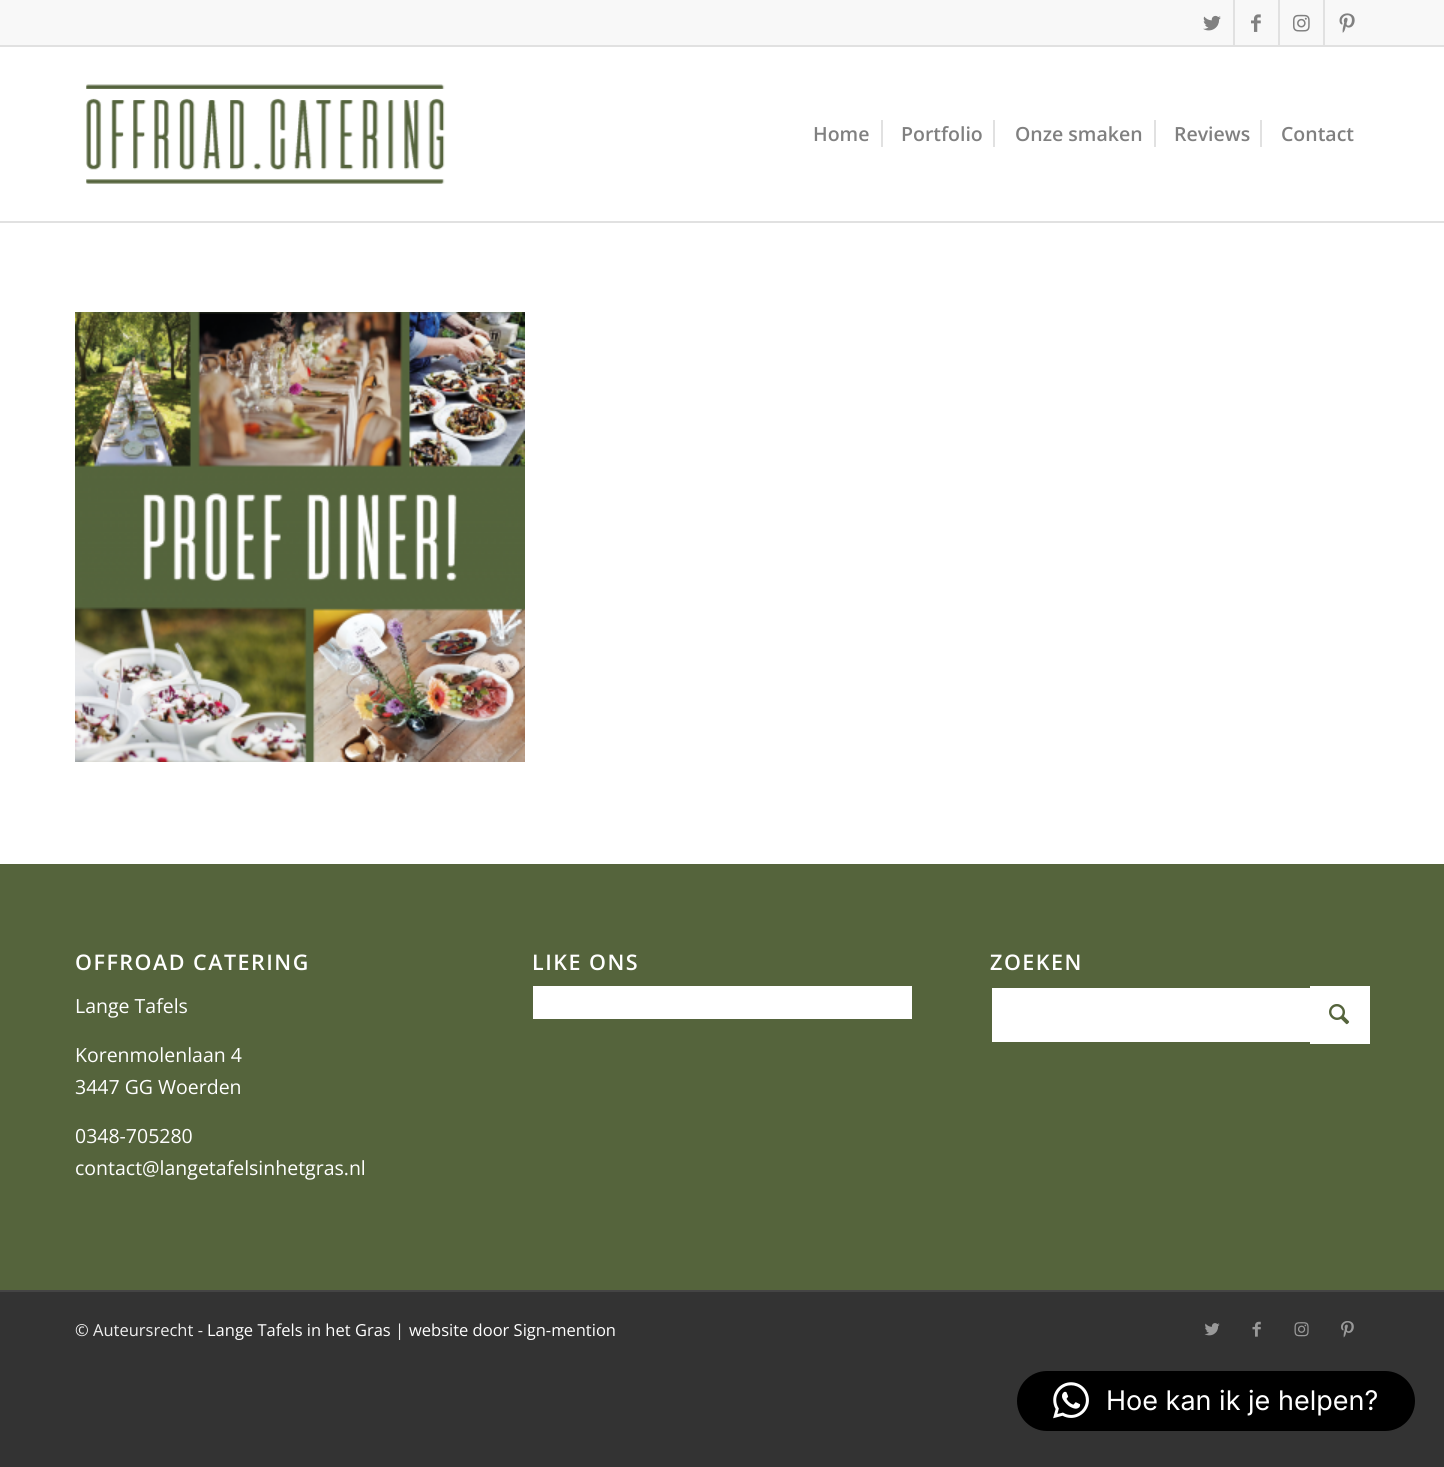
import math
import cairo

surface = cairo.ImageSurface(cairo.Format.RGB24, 1444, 1467)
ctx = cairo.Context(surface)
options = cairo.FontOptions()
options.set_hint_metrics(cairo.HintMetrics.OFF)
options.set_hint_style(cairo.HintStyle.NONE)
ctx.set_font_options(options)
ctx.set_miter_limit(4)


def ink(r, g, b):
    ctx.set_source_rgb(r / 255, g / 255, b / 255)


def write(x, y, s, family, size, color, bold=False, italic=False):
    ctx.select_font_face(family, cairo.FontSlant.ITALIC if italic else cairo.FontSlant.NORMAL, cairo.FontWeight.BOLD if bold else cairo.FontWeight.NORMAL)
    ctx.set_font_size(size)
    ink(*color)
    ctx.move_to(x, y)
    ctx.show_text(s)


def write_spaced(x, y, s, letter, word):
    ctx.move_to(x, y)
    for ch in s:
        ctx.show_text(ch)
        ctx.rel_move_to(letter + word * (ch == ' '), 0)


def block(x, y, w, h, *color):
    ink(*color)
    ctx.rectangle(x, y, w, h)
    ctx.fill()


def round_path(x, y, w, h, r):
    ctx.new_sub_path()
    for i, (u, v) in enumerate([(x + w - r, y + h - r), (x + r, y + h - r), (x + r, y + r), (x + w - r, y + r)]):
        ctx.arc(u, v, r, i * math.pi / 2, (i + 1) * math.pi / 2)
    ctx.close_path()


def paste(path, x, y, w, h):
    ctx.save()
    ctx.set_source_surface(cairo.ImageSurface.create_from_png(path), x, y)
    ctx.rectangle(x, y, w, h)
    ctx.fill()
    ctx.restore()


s1 = dict(family="Open Sans SemiBold", size=19.5, color=(128, 128, 128))
s2 = dict(family="Open Sans", size=19.5, color=(255, 255, 255))
s3 = dict(family="Open Sans", size=16.5, color=(238, 238, 238))
s4 = dict(family="Open Sans", size=16.5, color=(255, 255, 255))
s5 = dict(family="Inter", size=27, color=(255, 255, 255))

ink(51, 51, 51)
ctx.paint()
block(0, 0, 1444, 45, 248, 248, 248)
block(0, 45, 1444, 2, 225, 225, 225)
block(1233, 0, 2, 45, 225, 225, 225)
paste("pic1.png", 1203, 15, 18, 16)
block(1278, 0, 2, 45, 225, 225, 225)
paste("pic2.png", 1251, 14, 10, 18)
block(1323, 0, 2, 45, 225, 225, 225)
paste("pic3.png", 1293, 14, 17, 18)
paste("pic4.png", 1339, 13, 16, 20)
block(0, 47, 1444, 817, 255, 255, 255)
block(0, 221, 1444, 2, 225, 225, 225)
paste("pic5.png", 86, 84, 359, 100)
write(813, 141, "Home", **s1)
write(901, 141, "Portfolio", **s1)
block(881, 120, 2, 27, 225, 225, 225)
write(1015, 141, "Onze smaken", **s1)
block(993, 120, 2, 27, 225, 225, 225)
write(1174, 141, "Reviews", **s1)
block(1154, 120, 2, 27, 225, 225, 225)
write(1281, 141, "Contact", **s1)
block(1260, 120, 2, 27, 225, 225, 225)
paste("pic6.png", 75, 312, 450, 450)
block(0, 864, 1444, 426, 85, 100, 60)
ctx.set_font_size(21.5)
ink(255, 255, 255)
write_spaced(75, 970, "OFFROAD CATERING", 1.5, 0)
write(75, 1013, "Lange Tafels", **s2)
write(75, 1062, "Korenmolenlaan 4", **s2)
write(75, 1094, "3447 GG Woerden", **s2)
write(75, 1143, "0348-705280", **s2)
write(75, 1175, "contact@langetafelsinhetgras.nl", **s2)
ctx.select_font_face("Open Sans SemiBold")
ctx.set_font_size(21.5)
write_spaced(532, 970, "LIKE ONS", 1.5, 0)
block(533, 986, 379, 33, 255, 255, 255)
write_spaced(990, 970, "ZOEKEN", 1.5, 0)
block(992, 988, 318, 54, 255, 255, 255)
block(1310, 986, 60, 58, 255, 255, 255)
paste("pic7.png", 1329, 1004, 21, 21)
block(0, 1290, 1444, 2, 68, 68, 68)
write(75, 1336, "© Auteursrecht -", **s3)
write(207, 1336, "Lange Tafels in het Gras", **s4)
write(395, 1336, "|", **s3)
write(409, 1336, "website door Sign-mention", **s4)
paste("pic8.png", 1204, 1323, 16, 13)
paste("pic9.png", 1252, 1321, 9, 16)
paste("pic10.png", 1294, 1322, 15, 15)
paste("pic11.png", 1341, 1321, 13, 17)
ink(0, 0, 0)
round_path(1017, 1371, 398, 60, 30)
ctx.fill()
paste("pic12.png", 1053, 1382, 36, 37)
write(1106, 1410, "Hoe kan ik je helpen?", **s5)
surface.write_to_png("screenshot.png")
